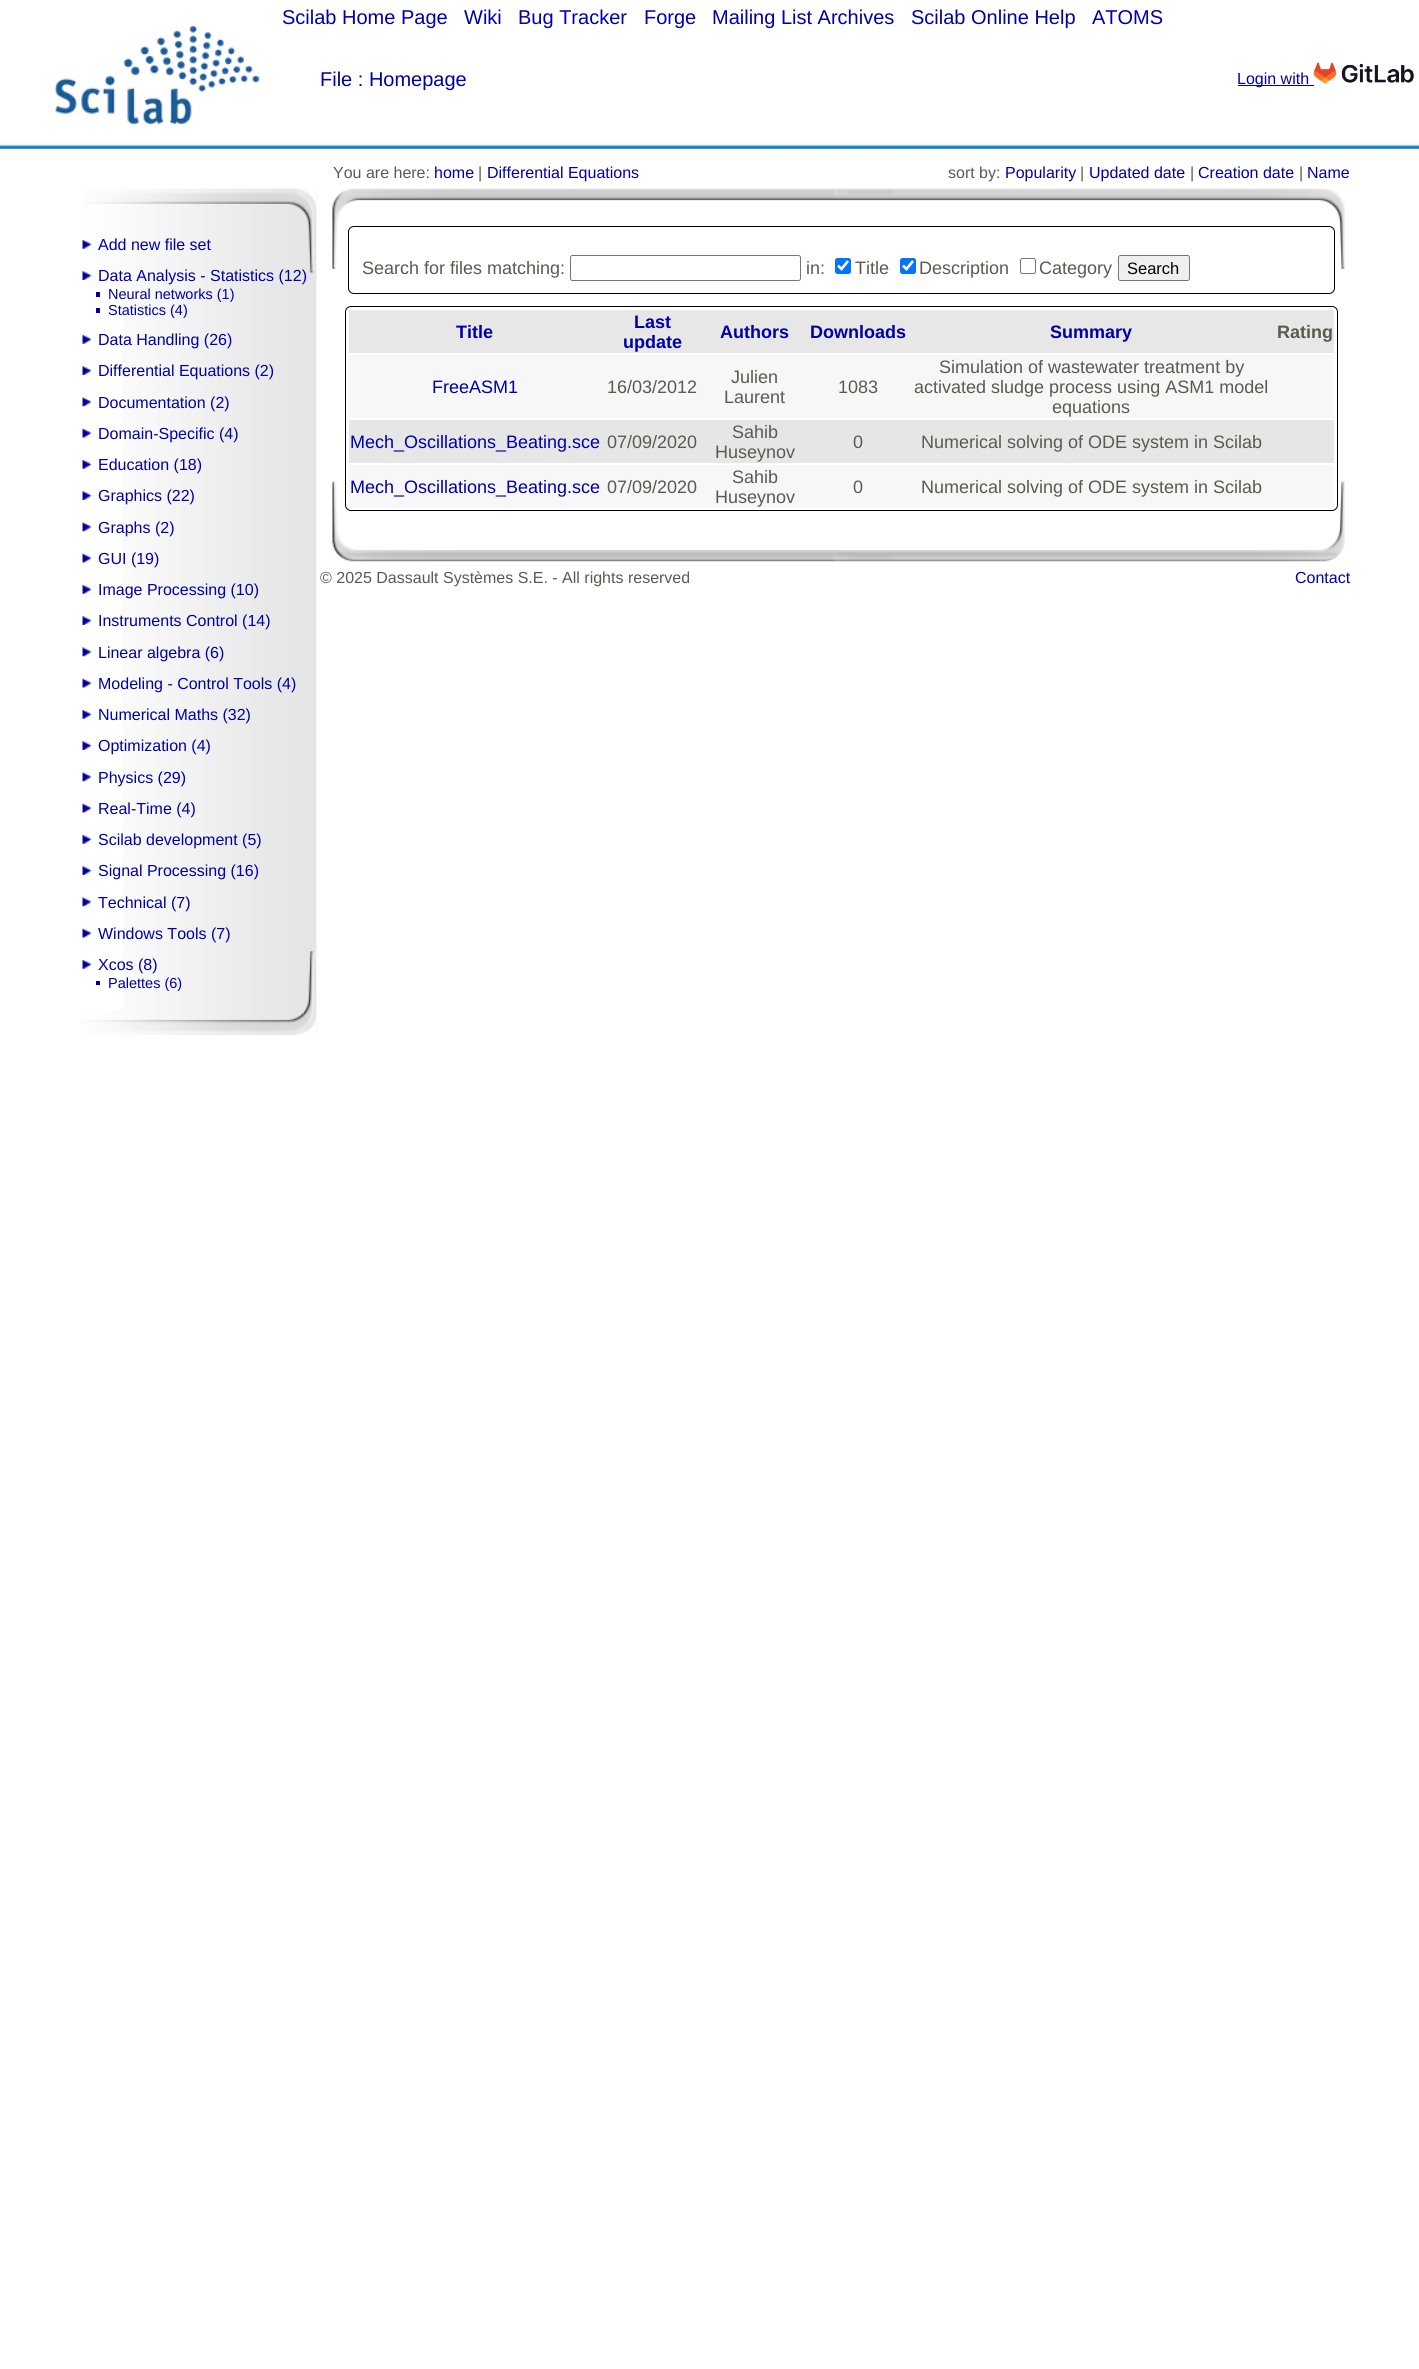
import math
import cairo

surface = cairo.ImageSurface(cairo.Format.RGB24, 1419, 2369)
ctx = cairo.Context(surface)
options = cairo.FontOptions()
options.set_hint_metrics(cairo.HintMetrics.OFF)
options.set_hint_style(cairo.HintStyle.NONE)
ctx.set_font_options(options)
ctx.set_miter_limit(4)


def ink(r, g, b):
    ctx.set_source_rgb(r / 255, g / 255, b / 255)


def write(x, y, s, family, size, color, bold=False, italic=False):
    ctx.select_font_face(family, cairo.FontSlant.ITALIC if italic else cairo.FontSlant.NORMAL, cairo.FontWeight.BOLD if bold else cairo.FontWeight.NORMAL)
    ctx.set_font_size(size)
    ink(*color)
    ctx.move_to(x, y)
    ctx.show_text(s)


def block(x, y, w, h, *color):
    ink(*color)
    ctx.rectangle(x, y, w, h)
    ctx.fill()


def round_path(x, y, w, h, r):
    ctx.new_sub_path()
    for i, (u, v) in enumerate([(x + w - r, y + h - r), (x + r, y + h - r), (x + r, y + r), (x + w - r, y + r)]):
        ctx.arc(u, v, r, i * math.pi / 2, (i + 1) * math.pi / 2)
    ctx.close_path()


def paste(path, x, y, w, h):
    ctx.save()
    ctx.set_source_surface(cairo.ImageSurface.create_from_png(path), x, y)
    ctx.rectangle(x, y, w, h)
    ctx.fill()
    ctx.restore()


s1 = dict(family="Liberation Sans", size=20, color=(0, 0, 170))
s2 = dict(family="Liberation Sans", size=16, color=(0, 0, 170))
s3 = dict(family="Liberation Sans", size=16, color=(91, 89, 80))
s4 = dict(family="Liberation Sans", size=14.5, color=(0, 0, 170))
s5 = dict(family="Liberation Sans", size=18, color=(91, 89, 80))
s6 = dict(family="Liberation Sans", size=16.5, color=(0, 0, 0))
s7 = dict(family="Liberation Sans", size=18, color=(0, 0, 170), bold=True)
s8 = dict(family="Liberation Sans", size=18, color=(91, 89, 80), bold=True)
s9 = dict(family="Liberation Sans", size=18, color=(0, 0, 170))

ink(255, 255, 255)
ctx.paint()
paste("pic1.png", 0, 141, 1419, 8)
paste("pic2.png", 54, 25, 207, 100)
write(282, 24, "Scilab Home Page", **s1)
write(464, 24, "Wiki", **s1)
write(518, 24, "Bug Tracker", **s1)
write(644, 24, "Forge", **s1)
write(712, 24, "Mailing List Archives", **s1)
write(911, 24, "Scilab Online Help", **s1)
write(1092, 24, "ATOMS", **s1)
write(320, 86, "File : Homepage", **s1)
block(1238, 85, 76, 1, 0, 0, 170)
write(1237, 84, "Login with", **s2)
paste("pic3.png", 1313, 62, 101, 22)
paste("pic4.png", 332, 188, 1013, 81)
write(333, 178, "You are here:", **s3)
write(434, 178, "home", **s2)
write(478, 178, "|", **s3)
write(487, 178, "Differential Equations", **s2)
write(948, 178, "sort by:", **s3)
write(1005, 178, "Popularity", **s2)
write(1080, 178, "|", **s3)
write(1089, 178, "Updated date", **s2)
write(1190, 178, "|", **s3)
write(1198, 178, "Creation date", **s2)
write(1299, 178, "|", **s3)
write(1307, 178, "Name", **s2)
paste("pic5.png", 123, 188, 194, 847)
paste("pic6.png", 83, 188, 234, 97)
paste("pic7.png", 82, 240, 10, 9)
write(98, 250, "Add new file set", **s2)
paste("pic8.png", 82, 271, 10, 9)
write(98, 281, "Data Analysis - Statistics (12)", **s2)
block(96, 292, 4, 5, 0, 0, 153)
write(108, 299, "Neural networks (1)", **s4)
block(96, 308, 4, 5, 0, 0, 153)
write(108, 315, "Statistics (4)", **s4)
paste("pic9.png", 82, 335, 10, 9)
write(98, 345, "Data Handling (26)", **s2)
paste("pic10.png", 82, 366, 10, 9)
write(98, 376, "Differential Equations (2)", **s2)
paste("pic11.png", 82, 397, 10, 10)
write(98, 408, "Documentation (2)", **s2)
paste("pic12.png", 82, 428, 10, 10)
write(98, 439, "Domain-Specific (4)", **s2)
paste("pic9.png", 82, 460, 10, 9)
write(98, 470, "Education (18)", **s2)
paste("pic10.png", 82, 491, 10, 9)
write(98, 501, "Graphics (22)", **s2)
paste("pic11.png", 82, 522, 10, 10)
write(98, 533, "Graphs (2)", **s2)
paste("pic12.png", 82, 553, 10, 10)
write(98, 564, "GUI (19)", **s2)
paste("pic13.png", 82, 585, 10, 9)
write(98, 595, "Image Processing (10)", **s2)
paste("pic10.png", 82, 616, 10, 9)
write(98, 626, "Instruments Control (14)", **s2)
paste("pic11.png", 82, 647, 10, 10)
write(98, 658, "Linear algebra (6)", **s2)
paste("pic12.png", 82, 678, 10, 10)
write(98, 689, "Modeling - Control Tools (4)", **s2)
paste("pic9.png", 82, 710, 10, 9)
write(98, 720, "Numerical Maths (32)", **s2)
paste("pic10.png", 82, 741, 10, 9)
write(98, 751, "Optimization (4)", **s2)
paste("pic11.png", 82, 772, 10, 10)
write(98, 783, "Physics (29)", **s2)
paste("pic12.png", 82, 803, 10, 10)
write(98, 814, "Real-Time (4)", **s2)
paste("pic9.png", 82, 835, 10, 9)
write(98, 845, "Scilab development (5)", **s2)
paste("pic10.png", 82, 866, 10, 9)
write(98, 876, "Signal Processing (16)", **s2)
paste("pic11.png", 82, 897, 10, 10)
write(98, 908, "Technical (7)", **s2)
paste("pic12.png", 82, 928, 10, 10)
write(98, 939, "Windows Tools (7)", **s2)
paste("pic9.png", 82, 960, 10, 9)
write(98, 970, "Xcos (8)", **s2)
block(96, 981, 4, 4, 0, 0, 153)
write(108, 988, "Palettes (6)", **s4)
paste("pic14.png", 303, 945, 14, 90)
paste("pic15.png", 80, 1010, 224, 25)
paste("pic16.png", 332, 481, 1013, 81)
round_path(348.5, 226.5, 986, 67, 5.5)
ink(0, 0, 0)
ctx.set_line_width(1)
ctx.stroke()
write(362, 274, "Search for files matching:", **s5)
round_path(570.5, 255.5, 230, 25, 2)
ink(118, 118, 118)
ctx.stroke()
write(806, 274, "in:", **s5)
ink(0, 117, 255)
round_path(835, 258, 16, 16, 2.5)
ctx.fill()
ctx.new_path()
ctx.move_to(838, 265.5)
ctx.line_to(841.5, 269)
ctx.line_to(848, 261)
ink(255, 255, 255)
ctx.set_line_width(2.6)
ctx.stroke()
write(855, 274, "Title", **s5)
ink(0, 117, 255)
round_path(900, 258, 16, 16, 2.5)
ctx.fill()
ctx.new_path()
ctx.move_to(903, 265.5)
ctx.line_to(906.5, 269)
ctx.line_to(913, 261)
ink(255, 255, 255)
ctx.stroke()
write(919, 274, "Description", **s5)
round_path(1020.5, 258.5, 15, 15, 2)
ink(118, 118, 118)
ctx.set_line_width(1)
ctx.stroke()
write(1039, 274, "Category", **s5)
ink(239, 239, 239)
round_path(1118.5, 255.5, 71, 25, 2)
ctx.fill_preserve()
ink(118, 118, 118)
ctx.stroke()
write(1127, 274, "Search", **s6)
round_path(345.5, 306.5, 992, 204, 5.5)
ctx.stroke()
block(349, 310, 985, 43, 231, 231, 231)
write(456, 338, "Title", **s7)
write(634, 328, "Last", **s7)
write(623, 348, "update", **s7)
write(720, 338, "Authors", **s7)
write(810, 338, "Downloads", **s7)
write(1050, 338, "Summary", **s7)
write(1277, 338, "Rating", **s8)
block(349, 355, 985, 63, 247, 247, 247)
write(432, 393, "FreeASM1", **s9)
write(607, 393, "16/03/2012", **s5)
write(731, 383, "Julien", **s5)
write(724, 403, "Laurent", **s5)
write(838, 393, "1083", **s5)
write(939, 373, "Simulation of wastewater treatment by", **s5)
write(914, 393, "activated sludge process using ASM1 model", **s5)
write(1052, 413, "equations", **s5)
block(349, 420, 985, 43, 230, 230, 230)
write(350, 448, "Mech_Oscillations_Beating.sce", **s9)
write(607, 448, "07/09/2020", **s5)
write(732, 438, "Sahib", **s5)
write(715, 458, "Huseynov", **s5)
write(853, 448, "0", **s5)
write(921, 448, "Numerical solving of ODE system in Scilab", **s5)
block(349, 465, 985, 43, 247, 247, 247)
write(350, 493, "Mech_Oscillations_Beating.sce", **s9)
write(607, 493, "07/09/2020", **s5)
write(732, 483, "Sahib", **s5)
write(715, 503, "Huseynov", **s5)
write(853, 493, "0", **s5)
write(921, 493, "Numerical solving of ODE system in Scilab", **s5)
write(320, 583, "© 2025 Dassault Systèmes S.E. - All rights reserved", **s3)
write(1295, 583, "Contact", **s2)
surface.write_to_png("screenshot.png")
